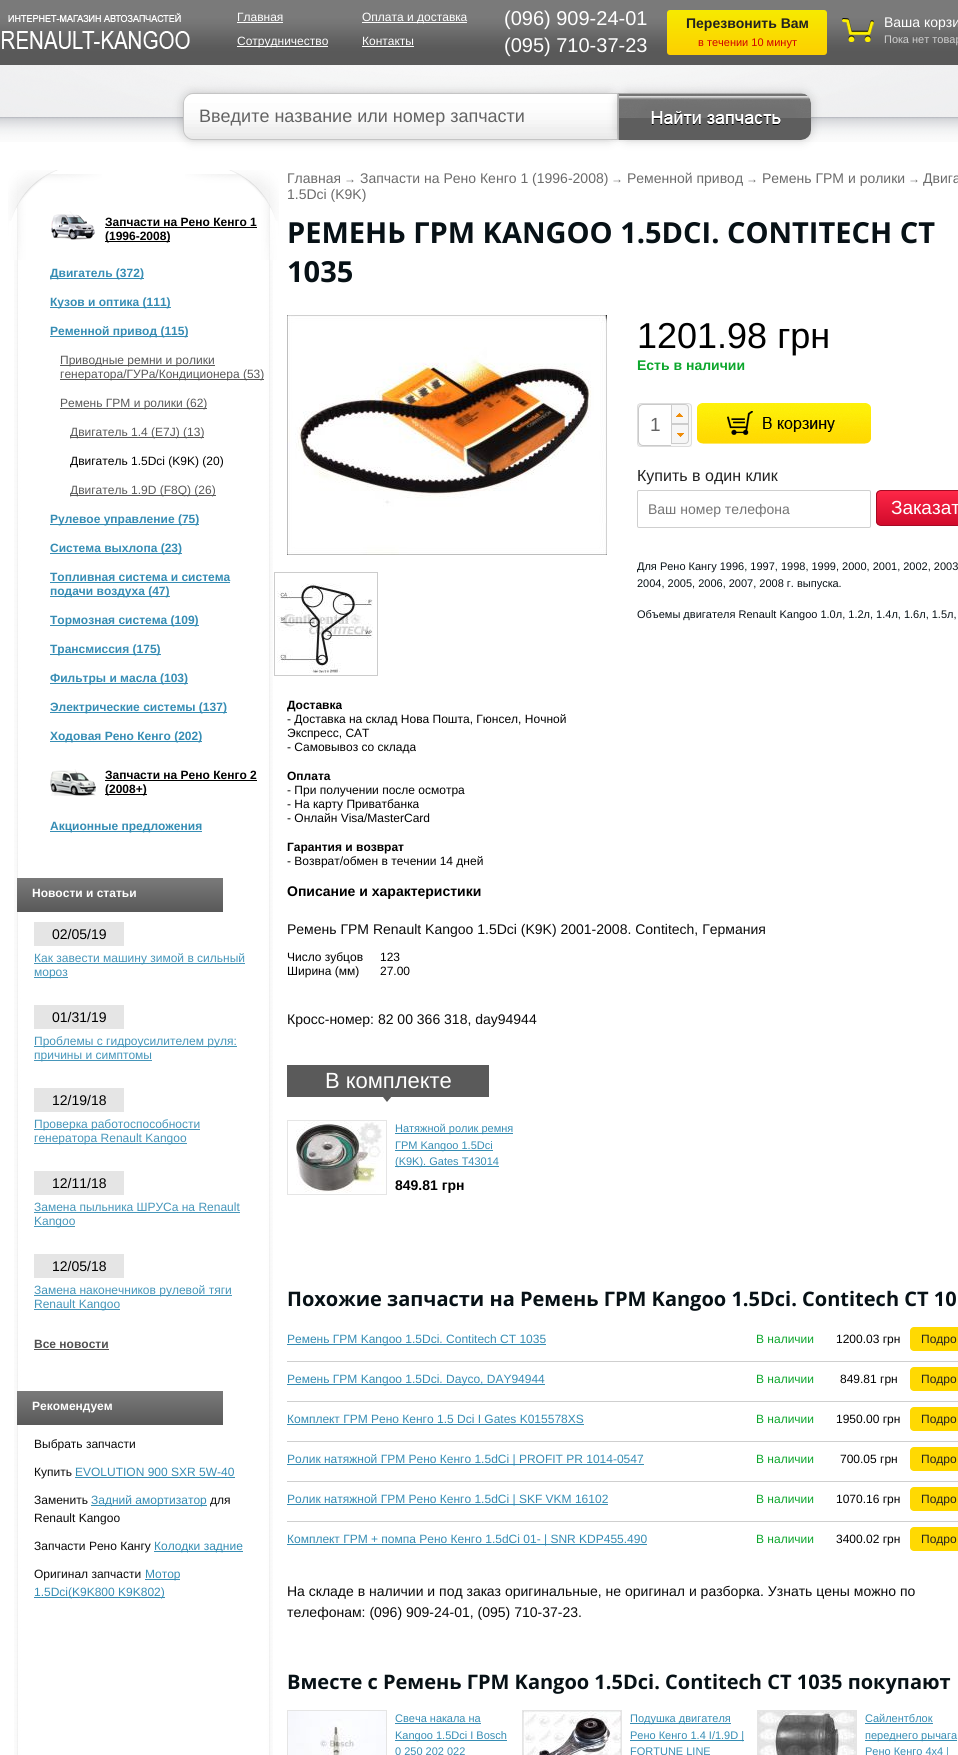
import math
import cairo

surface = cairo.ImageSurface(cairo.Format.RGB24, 958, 1755)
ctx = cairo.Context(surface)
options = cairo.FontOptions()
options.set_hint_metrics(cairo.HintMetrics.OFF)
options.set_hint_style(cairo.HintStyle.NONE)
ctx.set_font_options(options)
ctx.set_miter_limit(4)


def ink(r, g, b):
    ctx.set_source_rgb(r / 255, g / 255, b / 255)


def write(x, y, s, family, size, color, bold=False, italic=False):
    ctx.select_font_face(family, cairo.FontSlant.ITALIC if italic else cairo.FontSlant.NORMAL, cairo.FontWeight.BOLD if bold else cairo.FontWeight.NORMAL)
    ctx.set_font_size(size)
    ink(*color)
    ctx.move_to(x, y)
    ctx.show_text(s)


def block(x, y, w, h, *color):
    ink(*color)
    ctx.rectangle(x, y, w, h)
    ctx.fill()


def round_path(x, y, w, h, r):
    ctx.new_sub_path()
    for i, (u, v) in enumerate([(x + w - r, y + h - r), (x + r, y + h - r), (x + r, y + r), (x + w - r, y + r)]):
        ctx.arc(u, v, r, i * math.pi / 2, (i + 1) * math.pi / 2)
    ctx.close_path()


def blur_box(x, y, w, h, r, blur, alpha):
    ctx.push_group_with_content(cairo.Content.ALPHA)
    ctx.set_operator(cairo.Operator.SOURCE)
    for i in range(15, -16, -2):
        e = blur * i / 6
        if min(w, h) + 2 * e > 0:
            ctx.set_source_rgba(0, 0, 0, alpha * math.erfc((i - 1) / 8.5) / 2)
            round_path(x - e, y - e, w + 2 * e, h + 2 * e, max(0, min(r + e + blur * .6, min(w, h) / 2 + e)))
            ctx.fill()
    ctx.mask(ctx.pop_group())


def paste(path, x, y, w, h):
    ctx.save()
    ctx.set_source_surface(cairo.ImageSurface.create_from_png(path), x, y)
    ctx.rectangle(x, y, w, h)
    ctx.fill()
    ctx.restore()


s1 = dict(family="Liberation Sans", size=12, color=(255, 255, 255))
s2 = dict(family="Liberation Sans", size=20, color=(255, 255, 255))
s3 = dict(family="Liberation Sans", size=14, color=(33, 33, 33), bold=True)
s4 = dict(family="Liberation Sans", size=11, color=(209, 1, 1))
s5 = dict(family="Liberation Sans", size=14, color=(255, 255, 255))
s6 = dict(family="Liberation Sans", size=11, color=(208, 208, 208))
s7 = dict(family="Liberation Sans", size=18, color=(99, 99, 99))
s8 = dict(family="Liberation Sans", size=12, color=(0, 0, 0), bold=True)
s9 = dict(family="Liberation Sans", size=12, color=(54, 141, 180), bold=True)
s10 = dict(family="Liberation Sans", size=12, color=(89, 89, 89))
s11 = dict(family="Liberation Sans", size=12, color=(0, 0, 0))
s12 = dict(family="Liberation Sans", size=12, color=(255, 255, 255), bold=True)
s13 = dict(family="Liberation Sans", size=14, color=(0, 0, 0))
s14 = dict(family="Liberation Sans", size=12, color=(70, 150, 186))
s15 = dict(family="Liberation Sans", size=12, color=(81, 81, 81), bold=True)
s16 = dict(family="Liberation Sans", size=12, color=(10, 10, 10))
s17 = dict(family="Liberation Sans", size=12, color=(54, 141, 180))
s18 = dict(family="Liberation Sans", size=14, color=(107, 107, 107))
s19 = dict(family="Liberation Sans", size=12, color=(107, 107, 107), italic=True)
s20 = dict(family="Open Sans", size=29, color=(7, 17, 22), bold=True)
s21 = dict(family="Liberation Sans", size=36, color=(0, 0, 0))
s22 = dict(family="Liberation Sans", size=14, color=(12, 166, 44), bold=True)
s23 = dict(family="Liberation Sans", size=19, color=(99, 99, 99))
s24 = dict(family="Liberation Sans", size=16, color=(33, 33, 33))
s25 = dict(family="Liberation Sans", size=14, color=(117, 117, 117))
s26 = dict(family="Liberation Sans", size=19, color=(255, 255, 255))
s27 = dict(family="Liberation Sans", size=11, color=(7, 17, 22))
s28 = dict(family="Liberation Sans", size=14, color=(0, 0, 0), bold=True)
s29 = dict(family="Liberation Sans", size=14, color=(10, 10, 10))
s30 = dict(family="Liberation Sans", size=22, color=(255, 255, 255))
s31 = dict(family="Liberation Sans", size=11, color=(54, 141, 180))
s32 = dict(family="Open Sans", size=20, color=(7, 17, 22), bold=True)
s33 = dict(family="Liberation Sans", size=12, color=(12, 166, 44))
s34 = dict(family="Liberation Sans", size=12, color=(33, 33, 33))

ink(255, 255, 255)
ctx.paint()
paste("pic1.png", 0, 0, 958, 65)
paste("pic2.png", 2, 13, 188, 36)
write(237, 21, "Главная", **s1)
block(237, 22, 46, 1, 255, 255, 255)
block(362, 22, 105, 1, 255, 255, 255)
write(362, 21, "Оплата и доставка", **s1)
block(237, 46, 91, 1, 255, 255, 255)
write(237, 45, "Сотрудничество", **s1)
write(362, 45, "Контакты", **s1)
block(362, 46, 52, 1, 255, 255, 255)
write(504, 25, "(096) 909-24-01", **s2)
write(504, 52, "(095) 710-37-23", **s2)
gradient = cairo.LinearGradient(747, 10, 747, 55)
gradient.add_color_stop_rgba(0, 0.965, 0.918, 0, 1)
gradient.add_color_stop_rgba(1, 0.992, 0.812, 0, 1)
ctx.set_source(gradient)
round_path(667, 10, 160, 45, 3)
ctx.fill()
write(686, 28, "Перезвонить Вам", **s3)
write(698, 46, "в течении 10 минут", **s4)
paste("pic3.png", 842, 18, 32, 24)
write(884, 27, "Ваша корзи", **s5)
write(884, 43, "Пока нет товар", **s6)
paste("pic4.png", 0, 117, 958, 25)
paste("pic5.png", 0, 65, 958, 52)
ink(0, 0, 0)
blur_box(183, 93, 435, 47, 10, 5, 0.2)
paste("pic6.png", 183, 94, 434, 45)
ctx.new_path()
ctx.move_to(193, 93.5)
ctx.line_to(617.5, 93.5)
ctx.line_to(617.5, 139.5)
ctx.line_to(193, 139.5)
ctx.curve_to(188, 139.5, 183.5, 135, 183.5, 130)
ctx.line_to(183.5, 103)
ctx.curve_to(183.5, 98, 188, 93.5, 193, 93.5)
ctx.close_path()
ink(197, 197, 197)
ctx.set_line_width(1)
ctx.stroke()
write(199, 122, "Введите название или номер запчасти", **s7)
ink(0, 0, 0)
blur_box(618, 93, 193, 47, 10, 5, 0.2)
paste("pic7.png", 618, 93, 193, 47)
paste("pic8.png", 14, 260, 259, 1495)
paste("pic9.png", 8, 170, 271, 90)
paste("pic10.png", 51, 211, 44, 29)
write(105, 226, "Запчасти на Рено Кенго 1", **s8)
block(105, 227, 152, 1, 0, 0, 0)
block(105, 241, 65, 1, 0, 0, 0)
write(105, 240, "(1996-2008)", **s8)
block(50, 278, 94, 1, 54, 141, 180)
write(50, 277, "Двигатель (372)", **s9)
block(50, 307, 121, 1, 54, 141, 180)
write(50, 306, "Кузов и оптика (111)", **s9)
block(50, 336, 138, 1, 54, 141, 180)
write(50, 335, "Ременной привод (115)", **s9)
block(60, 365, 155, 1, 89, 89, 89)
write(60, 364, "Приводные ремни и ролики", **s10)
block(60, 379, 204, 1, 89, 89, 89)
write(60, 378, "генератора/ГУРа/Кондиционера (53)", **s10)
block(60, 408, 147, 1, 89, 89, 89)
write(60, 407, "Ремень ГРМ и ролики (62)", **s10)
block(70, 437, 134, 1, 89, 89, 89)
write(70, 436, "Двигатель 1.4 (E7J) (13)", **s10)
write(70, 465, "Двигатель 1.5Dci (K9K) (20)", **s11)
block(70, 495, 146, 1, 89, 89, 89)
write(70, 494, "Двигатель 1.9D (F8Q) (26)", **s10)
block(50, 524, 149, 1, 54, 141, 180)
write(50, 523, "Рулевое управление (75)", **s9)
block(50, 553, 132, 1, 54, 141, 180)
write(50, 552, "Система выхлопа (23)", **s9)
write(50, 581, "Топливная система и система", **s9)
block(50, 582, 180, 1, 54, 141, 180)
block(50, 596, 120, 1, 54, 141, 180)
write(50, 595, "подачи воздуха (47)", **s9)
block(50, 625, 149, 1, 54, 141, 180)
write(50, 624, "Тормозная система (109)", **s9)
block(50, 654, 111, 1, 54, 141, 180)
write(50, 653, "Трансмиссия (175)", **s9)
block(50, 683, 138, 1, 54, 141, 180)
write(50, 682, "Фильтры и масла (103)", **s9)
block(50, 712, 177, 1, 54, 141, 180)
write(50, 711, "Электрические системы (137)", **s9)
block(50, 741, 152, 1, 54, 141, 180)
write(50, 740, "Ходовая Рено Кенго (202)", **s9)
paste("pic11.png", 50, 769, 46, 27)
write(105, 779, "Запчасти на Рено Кенго 2", **s8)
block(105, 780, 152, 1, 0, 0, 0)
block(105, 794, 42, 1, 0, 0, 0)
write(105, 793, "(2008+)", **s8)
block(50, 831, 152, 1, 54, 141, 180)
write(50, 830, "Акционные предложения", **s9)
gradient = cairo.LinearGradient(120, 878, 120, 912)
gradient.add_color_stop_rgba(0, 0.478, 0.478, 0.478, 1)
gradient.add_color_stop_rgba(1, 0.349, 0.349, 0.349, 1)
ctx.set_source(gradient)
ctx.rectangle(17, 878, 206, 34)
ctx.fill()
write(32, 897, "Новости и статьи", **s12)
block(34, 922, 90, 24, 229, 229, 229)
write(52, 939, "02/05/19", **s13)
block(34, 963, 211, 1, 70, 150, 186)
write(34, 962, "Как завести машину зимой в сильный", **s14)
block(34, 977, 34, 1, 70, 150, 186)
write(34, 976, "мороз", **s14)
block(34, 1005, 90, 24, 229, 229, 229)
write(52, 1022, "01/31/19", **s13)
block(34, 1046, 203, 1, 70, 150, 186)
write(34, 1045, "Проблемы с гидроусилителем руля:", **s14)
block(34, 1060, 118, 1, 70, 150, 186)
write(34, 1059, "причины и симптомы", **s14)
block(34, 1088, 90, 24, 229, 229, 229)
write(52, 1105, "12/19/18", **s13)
block(34, 1129, 166, 1, 70, 150, 186)
write(34, 1128, "Проверка работоспособности", **s14)
block(34, 1143, 153, 1, 70, 150, 186)
write(34, 1142, "генератора Renault Kangoo", **s14)
block(34, 1171, 90, 24, 229, 229, 229)
write(52, 1188, "12/11/18", **s13)
write(34, 1211, "Замена пыльника ШРУСа на Renault", **s14)
block(34, 1212, 206, 1, 70, 150, 186)
block(34, 1226, 41, 1, 70, 150, 186)
write(34, 1225, "Kangoo", **s14)
block(34, 1254, 90, 24, 229, 229, 229)
write(52, 1271, "12/05/18", **s13)
block(34, 1295, 198, 1, 70, 150, 186)
write(34, 1294, "Замена наконечников рулевой тяги", **s14)
block(34, 1309, 86, 1, 70, 150, 186)
write(34, 1308, "Renault Kangoo", **s14)
write(34, 1348, "Все новости", **s15)
block(34, 1349, 75, 1, 81, 81, 81)
gradient = cairo.LinearGradient(120, 1391, 120, 1425)
gradient.add_color_stop_rgba(0, 0.478, 0.478, 0.478, 1)
gradient.add_color_stop_rgba(1, 0.349, 0.349, 0.349, 1)
ctx.set_source(gradient)
ctx.rectangle(17, 1391, 206, 34)
ctx.fill()
write(32, 1410, "Рекомендуем", **s12)
write(34, 1448, "Выбрать запчасти", **s16)
write(34, 1476, "Купить", **s16)
write(75, 1476, "EVOLUTION 900 SXR 5W-40", **s17)
block(75, 1477, 160, 1, 54, 141, 180)
write(34, 1504, "Заменить", **s16)
block(91, 1505, 116, 1, 54, 141, 180)
write(91, 1504, "Задний амортизатор", **s17)
write(210, 1504, "для", **s16)
write(34, 1522, "Renault Kangoo", **s16)
write(34, 1550, "Запчасти Рено Кангу", **s16)
block(154, 1551, 89, 1, 54, 141, 180)
write(154, 1550, "Колодки задние", **s17)
write(34, 1578, "Оригинал запчасти", **s16)
block(145, 1579, 35, 1, 54, 141, 180)
write(145, 1578, "Мотор", **s17)
block(34, 1597, 131, 1, 54, 141, 180)
write(34, 1596, "1.5Dci(K9K800 K9K802)", **s17)
write(287, 183, "Главная", **s18)
write(344, 183, "→", **s19)
write(360, 183, "Запчасти на Рено Кенго 1 (1996-2008)", **s18)
write(611, 183, "→", **s19)
write(627, 183, "Ременной привод", **s18)
write(746, 183, "→", **s19)
write(762, 183, "Ремень ГРМ и ролики", **s18)
write(908, 183, "→", **s19)
write(923, 183, "Двига", **s18)
write(287, 199, "1.5Dci (K9K)", **s18)
write(287, 243, "РЕМЕНЬ ГРМ KANGOO 1.5DCI. CONTITECH CT", **s20)
write(287, 282, "1035", **s20)
write(637, 348, "1201.98 грн", **s21)
write(637, 370, "Есть в наличии", **s22)
block(637, 404, 55, 43, 249, 249, 249)
round_path(637.5, 403.5, 54, 43, 3.5)
ink(221, 221, 221)
ctx.stroke()
ink(255, 255, 255)
ctx.new_path()
ctx.move_to(643, 404)
ctx.line_to(671, 404)
ctx.line_to(671, 446)
ctx.line_to(643, 446)
ctx.curve_to(640, 446, 638, 444, 638, 441)
ctx.line_to(638, 409)
ctx.curve_to(638, 406, 640, 404, 643, 404)
ctx.close_path()
ctx.fill()
ink(202, 202, 202)
ctx.set_fill_rule(cairo.FillRule.EVEN_ODD)
ctx.new_path()
ctx.move_to(643, 404)
ctx.line_to(671, 404)
ctx.line_to(671, 446)
ctx.line_to(643, 446)
ctx.curve_to(640, 446, 638, 444, 638, 441)
ctx.line_to(638, 409)
ctx.curve_to(638, 406, 640, 404, 643, 404)
ctx.close_path()
ctx.move_to(643, 405)
ctx.line_to(671, 405)
ctx.line_to(671, 445)
ctx.line_to(643, 445)
ctx.curve_to(641, 445, 639, 443, 639, 441)
ctx.line_to(639, 409)
ctx.curve_to(639, 407, 641, 405, 643, 405)
ctx.close_path()
ctx.fill()
write(650, 431, "1", **s23)
ink(246, 246, 246)
ctx.new_path()
ctx.move_to(671.5, 404.5)
ctx.line_to(685, 404.5)
ctx.curve_to(687, 404.5, 688.5, 406, 688.5, 408)
ctx.line_to(688.5, 423.5)
ctx.line_to(671.5, 423.5)
ctx.close_path()
ctx.fill_preserve()
ink(204, 204, 204)
ctx.stroke()
paste("pic12.png", 676, 413, 7, 4)
ink(246, 246, 246)
ctx.new_path()
ctx.move_to(671.5, 424.5)
ctx.line_to(688.5, 424.5)
ctx.line_to(688.5, 440)
ctx.curve_to(688.5, 442, 687, 443.5, 685, 443.5)
ctx.line_to(671.5, 443.5)
ctx.close_path()
ctx.fill_preserve()
ink(204, 204, 204)
ctx.stroke()
paste("pic13.png", 677, 433, 7, 4)
paste("pic14.png", 697, 403, 174, 41)
write(637, 481, "Купить в один клик", **s24)
round_path(637.5, 490.5, 233, 37, 1.5)
ink(207, 207, 207)
ctx.stroke()
write(648, 514, "Ваш номер телефона", **s25)
ctx.save()
ctx.set_fill_rule(cairo.FillRule.WINDING)
round_path(876, 490, 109, 36, 5)
ctx.clip()
gradient = cairo.LinearGradient(931, 491, 931, 525)
gradient.add_color_stop_rgba(0, 0.996, 0.153, 0.278, 1)
gradient.add_color_stop_rgba(1, 0.82, 0.039, 0.169, 1)
ctx.set_source(gradient)
ctx.rectangle(876, 491, 82, 34)
ctx.fill()
ctx.restore()
round_path(876.5, 490.5, 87, 35, 4.5)
ink(164, 11, 36)
ctx.stroke()
write(891, 514, "Заказат", **s26)
write(637, 570, "Для Рено Кангу 1996, 1997, 1998, 1999, 2000, 2001, 2002, 2003", **s27)
write(637, 587, "2004, 2005, 2006, 2007, 2008 г. выпуска.", **s27)
write(637, 618, "Объемы двигателя Renault Kangoo 1.0л, 1.2л, 1.4л, 1.6л, 1.5л,", **s27)
paste("pic15.png", 287, 315, 320, 240)
ctx.rectangle(274.5, 572.5, 103, 103)
ink(204, 204, 204)
ctx.stroke()
paste("pic16.png", 277, 583, 96, 90)
write(287, 709, "Доставка", **s8)
write(287, 723, "- Доставка на склад Нова Пошта, Гюнсел, Ночной", **s11)
write(287, 737, "Экспресс, САТ", **s11)
write(287, 751, "- Самовывоз со склада", **s11)
write(287, 780, "Оплата", **s8)
write(287, 794, "- При получении после осмотра", **s11)
write(287, 808, "- На карту Приватбанка", **s11)
write(287, 822, "- Онлайн Visa/MasterCard", **s11)
write(287, 851, "Гарантия и возврат", **s8)
write(287, 865, "- Возврат/обмен в течении 14 дней", **s11)
write(287, 896, "Описание и характеристики", **s28)
write(287, 934, "Ремень ГРМ Renault Kangoo 1.5Dci (K9K) 2001-2008. Contitech, Германия", **s29)
write(287, 961, "Число зубцов", **s11)
write(380, 961, "123", **s11)
write(287, 975, "Ширина (мм)", **s11)
write(380, 975, "27.00", **s11)
write(287, 1024, "Кросс-номер: 82 00 366 318, day94944", **s29)
paste("pic17.png", 287, 1065, 202, 37)
write(325, 1088, "В комплекте", **s30)
ctx.rectangle(287.5, 1120.5, 99, 74)
ink(229, 229, 229)
ctx.stroke()
paste("pic18.png", 296, 1121, 88, 72)
block(395, 1133, 118, 1, 54, 141, 180)
write(395, 1132, "Натяжной ролик ремня", **s31)
block(395, 1150, 98, 1, 54, 141, 180)
write(395, 1149, "ГРМ Kangoo 1.5Dci", **s31)
block(395, 1166, 104, 1, 54, 141, 180)
write(395, 1165, "(K9K). Gates T43014", **s31)
write(395, 1190, "849.81 грн", **s28)
write(287, 1306, "Похожие запчасти на Ремень ГРМ Kangoo 1.5Dci. Contitech CT 10", **s32)
block(287, 1361, 671, 1, 207, 207, 207)
block(287, 1344, 259, 1, 54, 141, 180)
write(287, 1343, "Ремень ГРМ Kangoo 1.5Dci. Contitech CT 1035", **s17)
write(756, 1343, "В наличии", **s33)
write(836, 1343, "1200.03 грн", **s11)
ink(255, 217, 2)
round_path(910, 1327, 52, 24, 4)
ctx.fill()
write(921, 1343, "Подро", **s34)
block(287, 1401, 671, 1, 207, 207, 207)
block(287, 1384, 258, 1, 54, 141, 180)
write(287, 1383, "Ремень ГРМ Kangoo 1.5Dci. Dayco, DAY94944", **s17)
write(756, 1383, "В наличии", **s33)
write(840, 1383, "849.81 грн", **s11)
ink(255, 217, 2)
round_path(910, 1367, 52, 24, 4)
ctx.fill()
write(921, 1383, "Подро", **s34)
block(287, 1441, 671, 1, 207, 207, 207)
write(287, 1423, "Комплект ГРМ Рено Кенго 1.5 Dci I Gates K015578XS", **s17)
block(287, 1424, 297, 1, 54, 141, 180)
write(756, 1423, "В наличии", **s33)
write(836, 1423, "1950.00 грн", **s11)
ink(255, 217, 2)
round_path(910, 1407, 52, 24, 4)
ctx.fill()
write(921, 1423, "Подро", **s34)
block(287, 1481, 671, 1, 207, 207, 207)
block(287, 1464, 357, 1, 54, 141, 180)
write(287, 1463, "Ролик натяжной ГРМ Рено Кенго 1.5dCi | PROFIT PR 1014-0547", **s17)
write(756, 1463, "В наличии", **s33)
write(840, 1463, "700.05 грн", **s11)
ink(255, 217, 2)
round_path(910, 1447, 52, 24, 4)
ctx.fill()
write(921, 1463, "Подро", **s34)
block(287, 1521, 671, 1, 207, 207, 207)
block(287, 1504, 321, 1, 54, 141, 180)
write(287, 1503, "Ролик натяжной ГРМ Рено Кенго 1.5dCi | SKF VKM 16102", **s17)
write(756, 1503, "В наличии", **s33)
write(836, 1503, "1070.16 грн", **s11)
ink(255, 217, 2)
round_path(910, 1487, 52, 24, 4)
ctx.fill()
write(921, 1503, "Подро", **s34)
block(287, 1544, 360, 1, 54, 141, 180)
write(287, 1543, "Комплект ГРМ + помпа Рено Кенго 1.5dCi 01- | SNR KDP455.490", **s17)
write(756, 1543, "В наличии", **s33)
write(836, 1543, "3400.02 грн", **s11)
ink(255, 217, 2)
round_path(910, 1527, 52, 24, 4)
ctx.fill()
write(921, 1543, "Подро", **s34)
write(287, 1596, "На складе в наличии и под заказ оригинальные, не оригинал и разборка. Узнать цены можно по", **s29)
write(287, 1617, "телефонам: (096) 909-24-01, (095) 710-37-23.", **s29)
write(287, 1689, "Вместе с Ремень ГРМ Kangoo 1.5Dci. Contitech CT 1035 покупают", **s32)
ctx.rectangle(287.5, 1710.5, 99, 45)
ink(229, 229, 229)
ctx.stroke()
paste("pic19.png", 288, 1711, 98, 44)
write(395, 1722, "Свеча накала на", **s31)
block(395, 1723, 86, 1, 54, 141, 180)
block(395, 1740, 112, 1, 54, 141, 180)
write(395, 1739, "Kangoo 1.5Dci I Bosch", **s31)
write(395, 1755, "0 250 202 022", **s31)
ctx.rectangle(522.5, 1710.5, 99, 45)
ink(229, 229, 229)
ctx.stroke()
paste("pic20.png", 523, 1711, 98, 44)
block(630, 1723, 101, 1, 54, 141, 180)
write(630, 1722, "Подушка двигателя", **s31)
block(630, 1740, 114, 1, 54, 141, 180)
write(630, 1739, "Рено Кенго 1.4 I/1.9D |", **s31)
write(630, 1755, "FORTUNE LINE", **s31)
ctx.rectangle(757.5, 1710.5, 99, 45)
ink(229, 229, 229)
ctx.stroke()
paste("pic21.png", 758, 1711, 98, 44)
write(865, 1722, "Сайлентблок", **s31)
block(865, 1723, 68, 1, 54, 141, 180)
block(865, 1740, 92, 1, 54, 141, 180)
write(865, 1739, "переднего рычага", **s31)
write(865, 1755, "Рено Кенго 4x4 |", **s31)
surface.write_to_png("screenshot.png")
